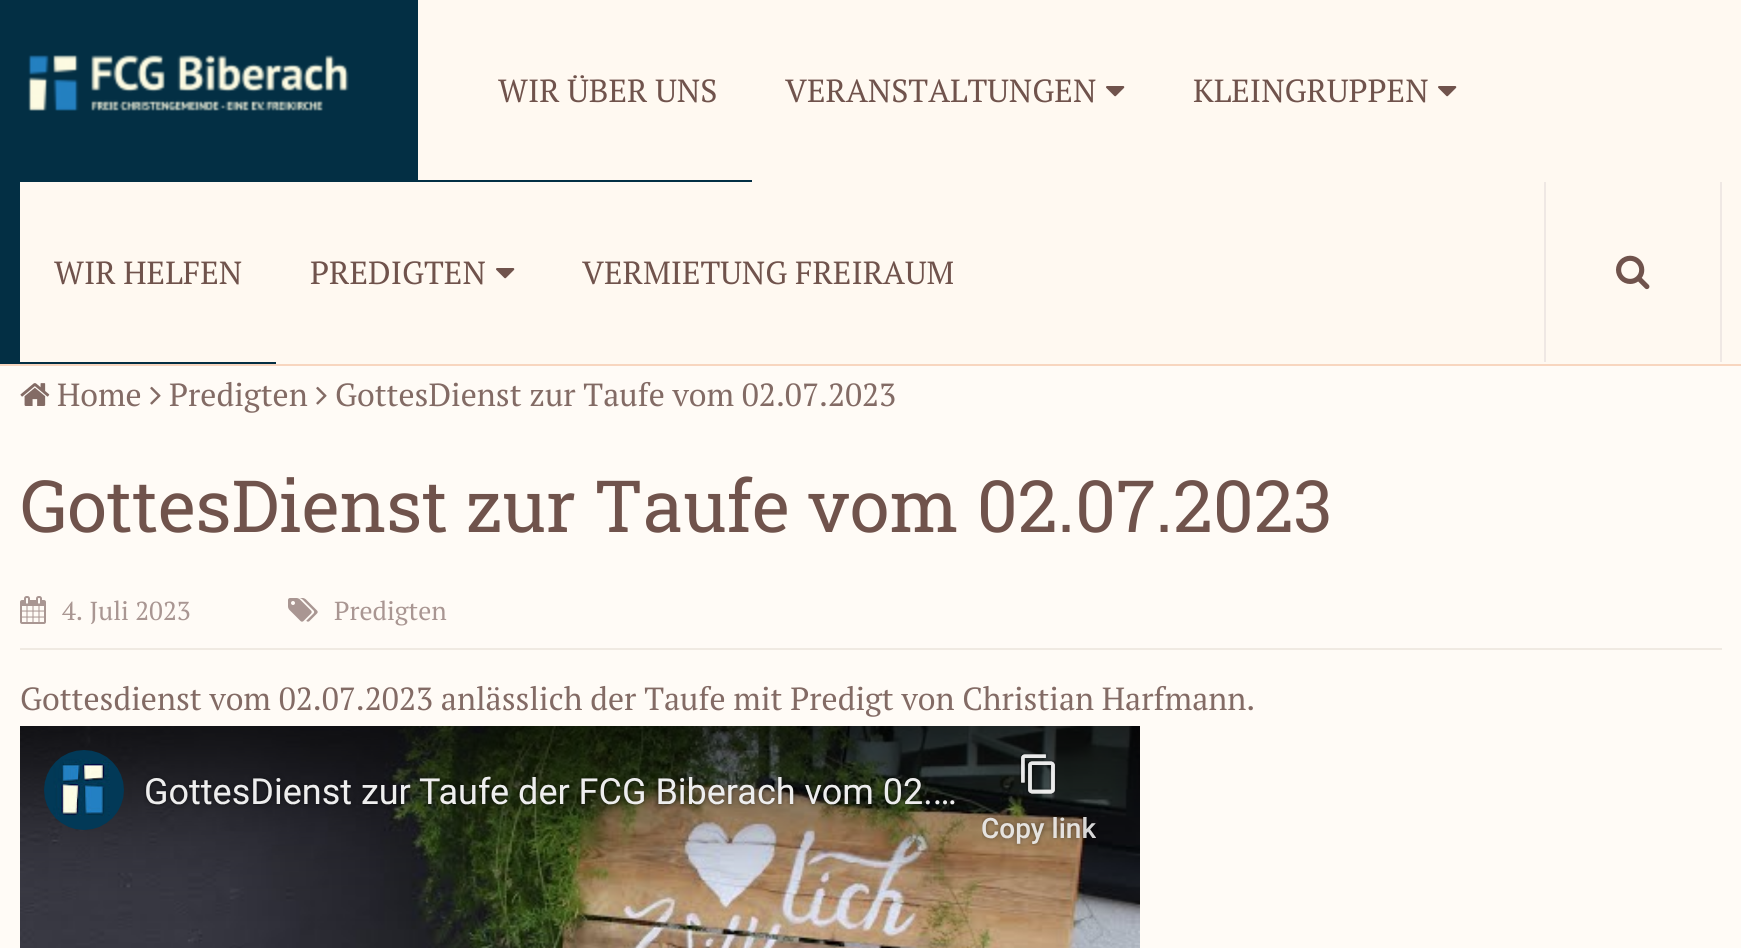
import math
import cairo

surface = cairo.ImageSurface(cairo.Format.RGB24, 1741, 948)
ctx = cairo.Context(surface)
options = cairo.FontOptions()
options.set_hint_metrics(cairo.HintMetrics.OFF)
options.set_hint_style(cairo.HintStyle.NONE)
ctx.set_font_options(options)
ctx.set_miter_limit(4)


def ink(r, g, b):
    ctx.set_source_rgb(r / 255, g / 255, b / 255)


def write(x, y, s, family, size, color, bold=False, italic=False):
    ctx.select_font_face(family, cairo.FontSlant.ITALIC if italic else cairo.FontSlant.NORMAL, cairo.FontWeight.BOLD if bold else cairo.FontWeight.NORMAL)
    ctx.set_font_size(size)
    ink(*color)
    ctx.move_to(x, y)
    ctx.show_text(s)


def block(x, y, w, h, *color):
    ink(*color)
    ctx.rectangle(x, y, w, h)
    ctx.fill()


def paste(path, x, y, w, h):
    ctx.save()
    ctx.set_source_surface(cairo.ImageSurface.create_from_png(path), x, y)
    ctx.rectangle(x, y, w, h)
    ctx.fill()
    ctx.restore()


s1 = dict(family="PT Serif", size=32, color=(112, 83, 76))
s2 = dict(family="PT Serif", size=32, color=(131, 107, 101))
s3 = dict(family="Roboto Slab", size=72, color=(112, 83, 76))
s4 = dict(family="PT Serif", size=26, color=(169, 150, 146))

ink(255, 251, 246)
ctx.paint()
block(0, 0, 752, 364, 3, 47, 68)
block(0, 364, 1741, 2, 248, 214, 191)
paste("pic1.png", 28, 55, 321, 56)
block(418, 0, 334, 180, 255, 249, 241)
write(498, 102, "WIR ÜBER UNS", **s1)
block(752, 0, 989, 182, 255, 249, 241)
write(785, 102, "VERANSTALTUNGEN", **s1)
paste("pic2.png", 1106, 86, 19, 11)
write(1193, 102, "KLEINGRUPPEN", **s1)
paste("pic2.png", 1438, 86, 19, 11)
block(20, 182, 256, 180, 255, 249, 241)
write(54, 284, "WIR HELFEN", **s1)
block(276, 182, 1465, 182, 255, 249, 241)
write(310, 284, "PREDIGTEN", **s1)
paste("pic2.png", 496, 268, 19, 11)
write(582, 284, "VERMIETUNG FREIRAUM", **s1)
block(1720, 182, 2, 180, 239, 232, 228)
block(1544, 182, 2, 180, 239, 232, 228)
paste("pic3.png", 1616, 255, 34, 35)
paste("pic4.png", 20, 383, 30, 23)
write(57, 406, "Home", **s2)
paste("pic5.png", 150, 386, 11, 19)
write(169, 406, "Predigten", **s2)
paste("pic5.png", 316, 386, 11, 19)
write(335, 406, "GottesDienst zur Taufe vom 02.07.2023", **s2)
write(20, 532, "GottesDienst zur Taufe vom 02.07.2023", **s3)
block(20, 648, 1702, 2, 240, 234, 226)
paste("pic6.png", 20, 596, 26, 28)
write(62, 620, "4. Juli 2023", **s4)
paste("pic7.png", 288, 598, 30, 24)
write(334, 620, "Predigten", **s4)
write(20, 710, "Gottesdienst vom 02.07.2023 anlässlich der Taufe mit Predigt von Christian Harfmann.", **s2)
paste("pic8.png", 20, 726, 1120, 222)
surface.write_to_png("screenshot.png")
